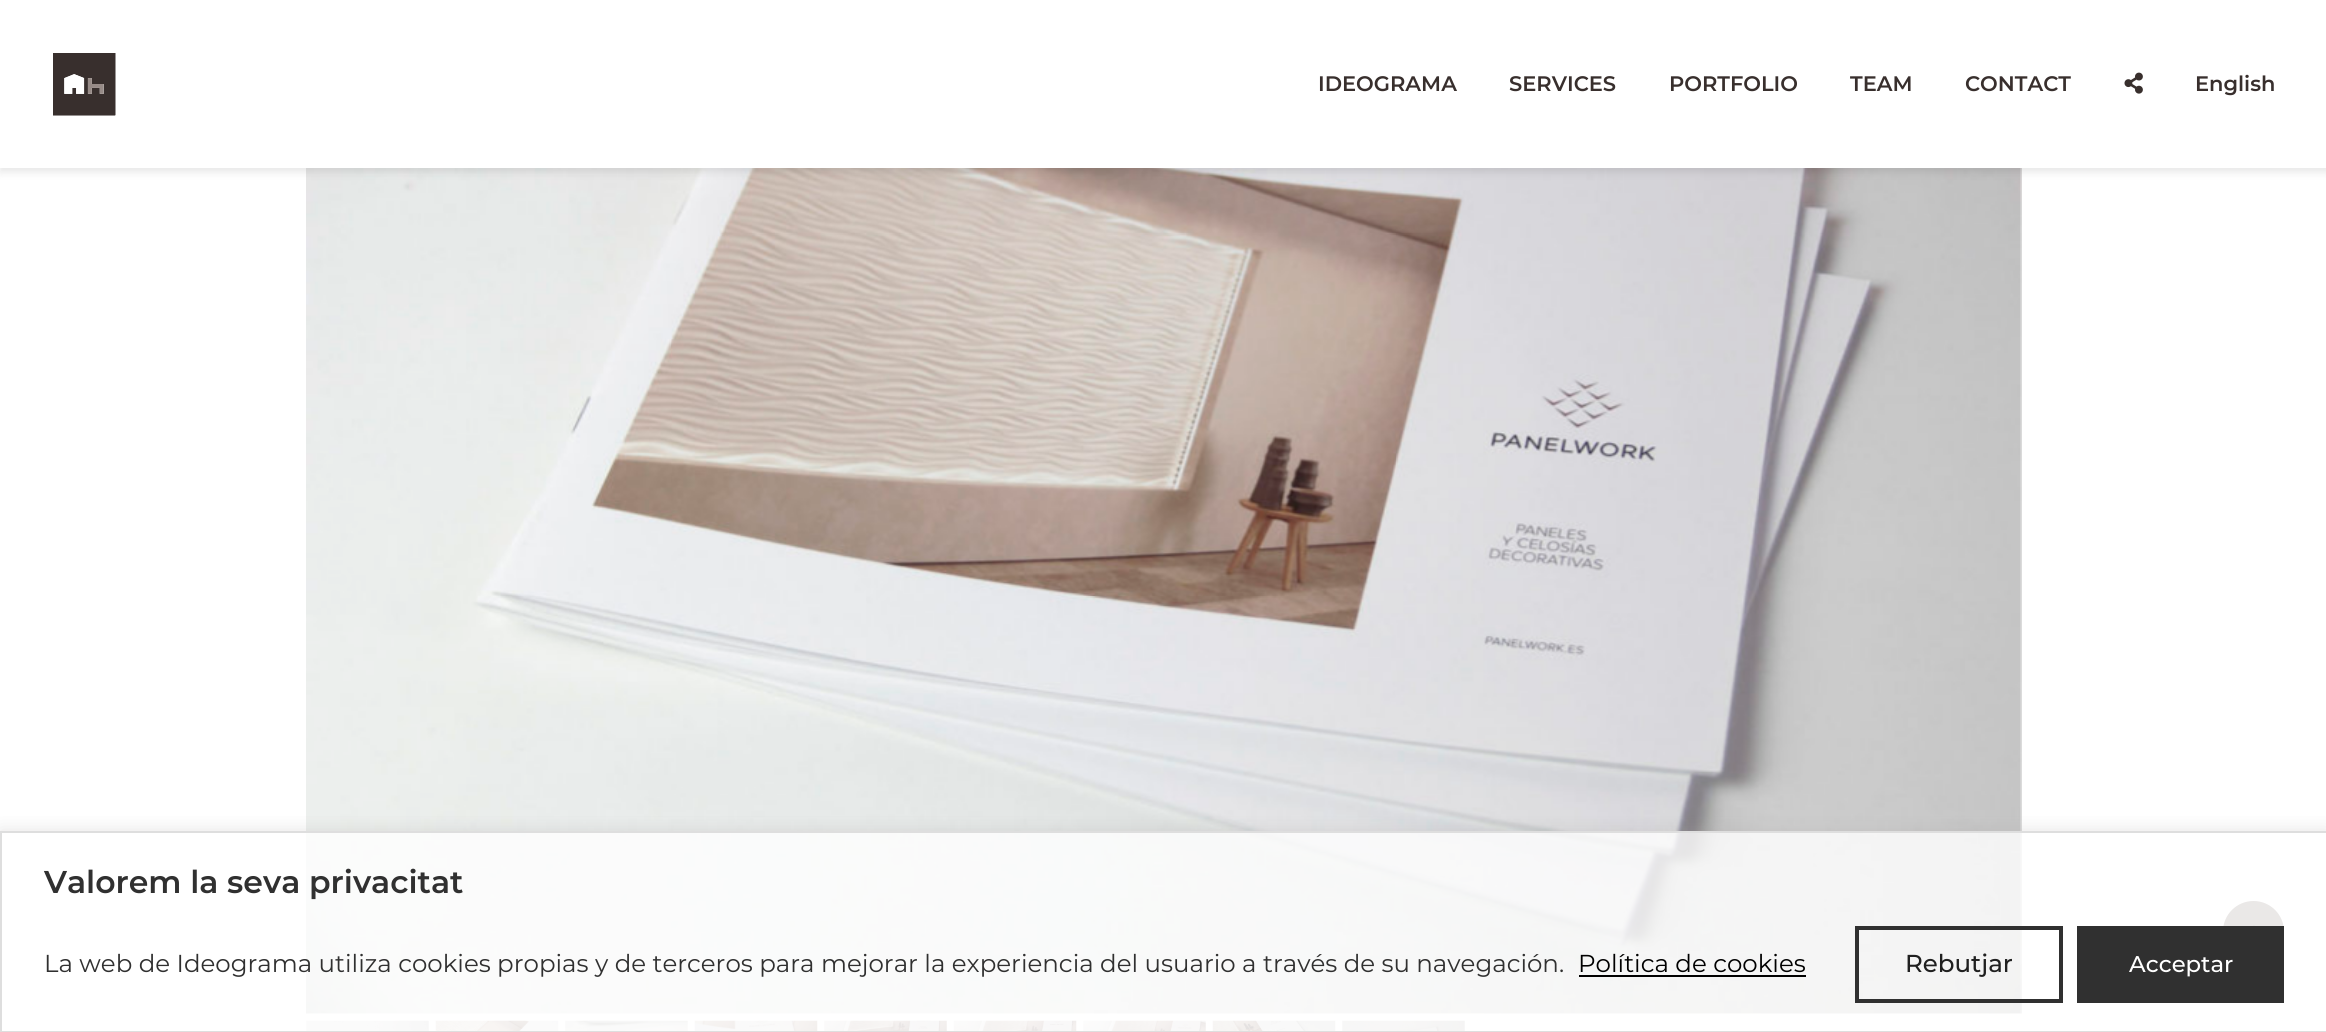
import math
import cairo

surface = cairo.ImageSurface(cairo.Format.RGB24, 2326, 1032)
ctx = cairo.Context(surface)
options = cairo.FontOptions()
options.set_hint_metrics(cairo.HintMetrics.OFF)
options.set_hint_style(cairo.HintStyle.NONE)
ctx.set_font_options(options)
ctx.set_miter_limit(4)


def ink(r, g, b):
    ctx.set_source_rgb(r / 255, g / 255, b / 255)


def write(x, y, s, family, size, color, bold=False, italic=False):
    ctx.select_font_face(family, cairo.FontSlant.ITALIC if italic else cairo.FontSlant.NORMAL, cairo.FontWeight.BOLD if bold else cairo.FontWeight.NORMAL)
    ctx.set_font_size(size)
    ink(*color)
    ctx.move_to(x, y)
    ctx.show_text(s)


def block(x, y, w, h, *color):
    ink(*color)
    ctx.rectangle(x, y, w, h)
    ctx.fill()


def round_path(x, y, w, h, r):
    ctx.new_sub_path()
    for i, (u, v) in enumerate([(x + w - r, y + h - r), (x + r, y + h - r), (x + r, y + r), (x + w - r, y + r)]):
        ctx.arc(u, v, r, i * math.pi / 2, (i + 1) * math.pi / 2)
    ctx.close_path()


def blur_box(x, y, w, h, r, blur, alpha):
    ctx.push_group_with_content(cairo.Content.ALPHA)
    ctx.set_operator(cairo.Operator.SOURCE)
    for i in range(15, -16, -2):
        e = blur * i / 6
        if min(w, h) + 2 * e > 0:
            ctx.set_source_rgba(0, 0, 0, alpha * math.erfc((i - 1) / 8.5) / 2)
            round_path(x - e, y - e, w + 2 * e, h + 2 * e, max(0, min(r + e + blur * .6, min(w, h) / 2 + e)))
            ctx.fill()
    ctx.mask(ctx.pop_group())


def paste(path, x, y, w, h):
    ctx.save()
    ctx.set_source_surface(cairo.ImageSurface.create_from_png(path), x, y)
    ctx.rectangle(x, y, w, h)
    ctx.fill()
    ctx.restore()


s1 = dict(family="Montserrat SemiBold", size=21, color=(56, 47, 45))
s2 = dict(family="Montserrat SemiBold", size=31.5, color=(48, 48, 48))
s3 = dict(family="Montserrat", size=24.5, color=(48, 48, 48))
s4 = dict(family="Montserrat", size=24.5, color=(0, 0, 0))
s5 = dict(family="Montserrat Medium", size=24.5, color=(32, 32, 32))
s6 = dict(family="Montserrat Medium", size=22.75, color=(255, 255, 255))

ink(255, 255, 255)
ctx.paint()
paste("pic3.png", 306, 168, 1716, 846)
ink(0, 0, 0)
blur_box(0, 4, 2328, 168, 0, 4.5, 0.1)
block(0, 0, 2326, 168, 255, 255, 255)
paste("pic1.png", 53, 53, 63, 63)
write(1318, 91, "IDEOGRAMA", **s1)
write(1509, 91, "SERVICES", **s1)
write(1669, 91, "PORTFOLIO", **s1)
write(1850, 91, "TEAM", **s1)
write(1965, 91, "CONTACT", **s1)
paste("pic2.png", 2124, 72, 19, 22)
write(2195, 91, "English", **s1)
paste("pic4.png", 306, 1020, 123, 11)
paste("pic5.png", 435, 1020, 124, 11)
paste("pic6.png", 565, 1020, 123, 11)
paste("pic7.png", 694, 1020, 124, 11)
paste("pic8.png", 824, 1020, 123, 11)
paste("pic9.png", 953, 1020, 124, 11)
paste("pic10.png", 1083, 1020, 123, 11)
paste("pic11.png", 1212, 1020, 124, 11)
paste("pic12.png", 1342, 1020, 123, 11)
ink(151, 139, 135)
round_path(2223, 901, 61, 62, 30.5)
ctx.fill()
paste("pic13.png", 2253, 925, 2, 1)
ctx.save()
ctx.rectangle(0, 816, 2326, 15)
ctx.clip()
ink(172, 171, 171)
blur_box(0, 830, 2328, 201, 0, 9, 0.3)
ctx.restore()
ctx.set_source_rgba(1, 1, 1, 0.8)
ctx.rectangle(306, 833, 1978, 198)
ctx.fill()
ctx.rectangle(1, 832, 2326, 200)
ink(222, 222, 222)
ctx.stroke()
write(44, 893, "Valorem la seva privacitat", **s2)
write(44, 972, "La web de Ideograma utiliza cookies propias y de terceros para mejorar la experiencia del usuario a través de su navegación.", **s3)
write(1578, 972, "Política de cookies", **s4)
block(1579, 975, 227, 2, 0, 0, 0)
ctx.rectangle(1857, 928, 204, 73)
ink(48, 48, 48)
ctx.set_line_width(4)
ctx.stroke()
write(1905, 972, "Rebutjar", **s5)
block(2077, 926, 207, 77, 48, 48, 48)
write(2129, 972, "Acceptar", **s6)
surface.write_to_png("screenshot.png")
